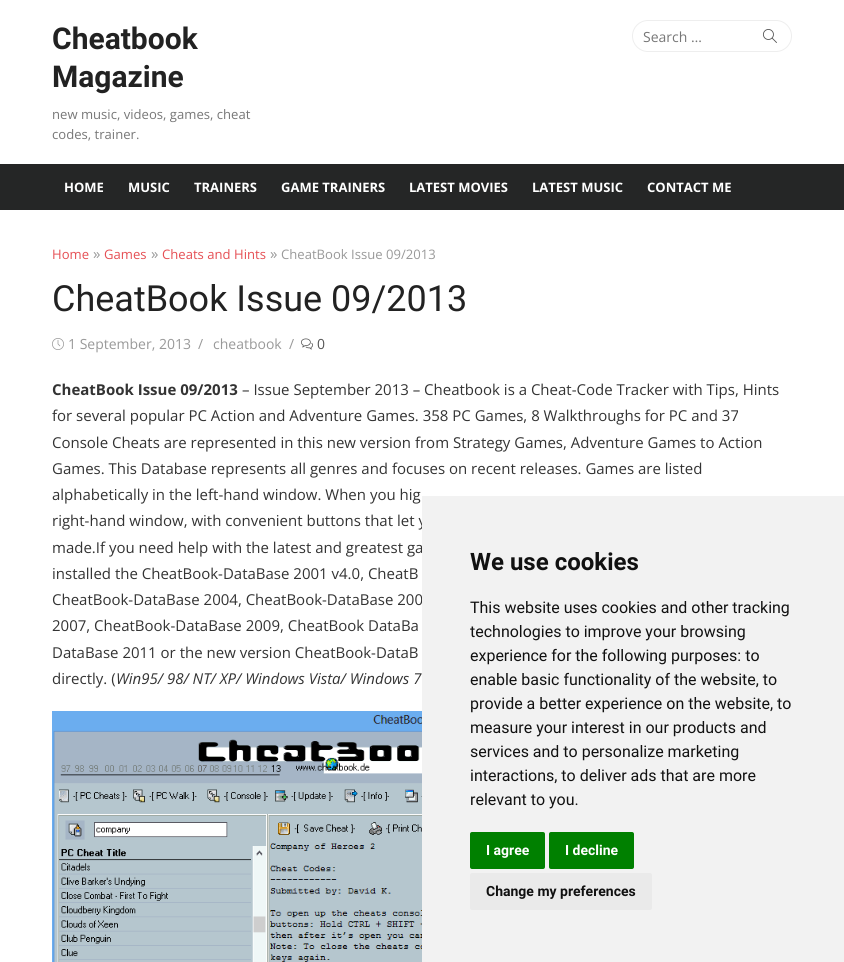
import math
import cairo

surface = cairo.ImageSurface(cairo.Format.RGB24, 844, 962)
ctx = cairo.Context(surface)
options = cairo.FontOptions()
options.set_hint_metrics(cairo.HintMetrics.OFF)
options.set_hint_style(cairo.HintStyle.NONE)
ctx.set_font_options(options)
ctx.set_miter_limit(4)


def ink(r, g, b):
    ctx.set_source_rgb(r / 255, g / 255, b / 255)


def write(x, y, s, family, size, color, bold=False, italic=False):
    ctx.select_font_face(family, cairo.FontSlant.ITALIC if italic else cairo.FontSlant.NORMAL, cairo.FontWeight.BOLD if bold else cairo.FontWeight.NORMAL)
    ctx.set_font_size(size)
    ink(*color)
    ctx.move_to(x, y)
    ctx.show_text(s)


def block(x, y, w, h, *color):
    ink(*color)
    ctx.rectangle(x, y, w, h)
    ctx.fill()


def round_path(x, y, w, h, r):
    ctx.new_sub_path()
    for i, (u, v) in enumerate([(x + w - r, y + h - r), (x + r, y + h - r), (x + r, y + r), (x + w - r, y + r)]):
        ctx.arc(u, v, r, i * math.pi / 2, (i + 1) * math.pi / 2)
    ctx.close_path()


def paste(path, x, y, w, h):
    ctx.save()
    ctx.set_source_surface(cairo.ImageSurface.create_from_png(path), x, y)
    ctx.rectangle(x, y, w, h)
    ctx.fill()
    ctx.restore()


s1 = dict(family="Roboto", size=30, color=(34, 34, 34), bold=True)
s2 = dict(family="Open Sans", size=13.1, color=(119, 119, 119))
s3 = dict(family="Open Sans", size=14, color=(119, 119, 119))
s4 = dict(family="Open Sans", size=13, color=(255, 255, 255), bold=True)
s5 = dict(family="Open Sans", size=13.1, color=(229, 78, 83))
s6 = dict(family="Open Sans", size=15, color=(153, 153, 153))
s7 = dict(family="Open Sans", size=13.1, color=(153, 153, 153))
s8 = dict(family="Roboto", size=36, color=(34, 34, 34))
s9 = dict(family="Open Sans", size=14, color=(153, 153, 153))
s10 = dict(family="Open Sans", size=14, color=(85, 85, 85))
s11 = dict(family="Open Sans", size=15, color=(51, 51, 51), bold=True)
s12 = dict(family="Open Sans", size=15, color=(51, 51, 51))
s13 = dict(family="Open Sans", size=15, color=(51, 51, 51), italic=True)
s14 = dict(family="Roboto", size=24, color=(17, 17, 17), bold=True)
s15 = dict(family="Roboto", size=16, color=(17, 17, 17))
s16 = dict(family="Roboto", size=14, color=(255, 255, 255), bold=True)
s17 = dict(family="Roboto", size=14, color=(17, 17, 17), bold=True)

ink(255, 255, 255)
ctx.paint()
write(52, 49, "Cheatbook", **s1)
write(52, 87, "Magazine", **s1)
write(52, 119, "new music, videos, games, cheat", **s2)
write(52, 139, "codes, trainer.", **s2)
round_path(632.5, 20.5, 159, 31, 15.5)
ink(238, 238, 238)
ctx.set_line_width(1)
ctx.stroke()
write(643, 42, "Search …", **s3)
paste("pic1.png", 762, 29, 15, 14)
block(0, 164, 844, 46, 37, 38, 38)
write(64, 192, "HOME", **s4)
write(128, 192, "MUSIC", **s4)
write(194, 192, "TRAINERS", **s4)
write(281, 192, "GAME TRAINERS", **s4)
write(409, 192, "LATEST MOVIES", **s4)
write(532, 192, "LATEST MUSIC", **s4)
write(647, 192, "CONTACT ME", **s4)
write(52, 259, "Home", **s5)
write(93, 259, "»", **s6)
write(104, 259, "Games", **s5)
write(151, 259, "»", **s6)
write(162, 259, "Cheats and Hints", **s5)
write(270, 259, "»", **s6)
write(281, 259, "CheatBook Issue 09/2013", **s7)
write(52, 311, "CheatBook Issue 09/2013", **s8)
paste("pic2.png", 52, 338, 12, 12)
write(68, 349, "1 September, 2013", **s9)
write(198, 349, "/", **s9)
write(213, 349, "cheatbook", **s9)
write(289, 349, "/", **s9)
paste("pic3.png", 301, 338, 12, 12)
write(317, 349, "0", **s10)
write(52, 395, "CheatBook Issue 09/2013", **s11)
write(242, 395, "– Issue September 2013 – Cheatbook is a Cheat-Code Tracker with Tips, Hints", **s12)
write(52, 421, "for several popular PC Action and Adventure Games. 358 PC Games, 8 Walkthroughs for PC and 37", **s12)
write(52, 448, "Console Cheats are represented in this new version from Strategy Games, Adventure Games to Action", **s12)
write(52, 474, "Games. This Database represents all genres and focuses on recent releases. Games are listed", **s12)
write(52, 500, "alphabetically in the left-hand window. When you hig", **s12)
write(52, 526, "right-hand window, with convenient buttons that let y", **s12)
write(52, 553, "made.If you need help with the latest and greatest ga", **s12)
write(52, 579, "installed the CheatBook-DataBase 2001 v4.0, CheatB", **s12)
write(52, 605, "CheatBook-DataBase 2004, CheatBook-DataBase 200", **s12)
write(52, 631, "2007, CheatBook-DataBase 2009, CheatBook DataBa", **s12)
write(52, 658, "DataBase 2011 or the new version CheatBook-DataB", **s12)
write(52, 684, "directly. (", **s12)
write(116, 684, "Win95/ 98/ NT/ XP/ Windows Vista/ Windows 7", **s13)
paste("pic4.png", 52, 711, 370, 251)
block(422, 496, 422, 466, 242, 242, 242)
write(470, 570, "We use cookies", **s14)
write(470, 613, "This website uses cookies and other tracking", **s15)
write(470, 637, "technologies to improve your browsing", **s15)
write(470, 661, "experience for the following purposes: to", **s15)
write(470, 685, "enable basic functionality of the website, to", **s15)
write(470, 709, "provide a better experience on the website, to", **s15)
write(470, 733, "measure your interest in our products and", **s15)
write(470, 757, "services and to personalize marketing", **s15)
write(470, 781, "interactions, to deliver ads that are more", **s15)
write(470, 805, "relevant to you.", **s15)
ink(0, 128, 0)
round_path(470, 832, 75, 37, 2)
ctx.fill()
write(486, 855, "I agree", **s16)
ink(0, 128, 0)
round_path(549, 832, 85, 37, 2)
ctx.fill()
write(565, 855, "I decline", **s16)
ink(234, 234, 234)
round_path(470, 873, 182, 37, 2)
ctx.fill()
write(486, 896, "Change my preferences", **s17)
surface.write_to_png("screenshot.png")
